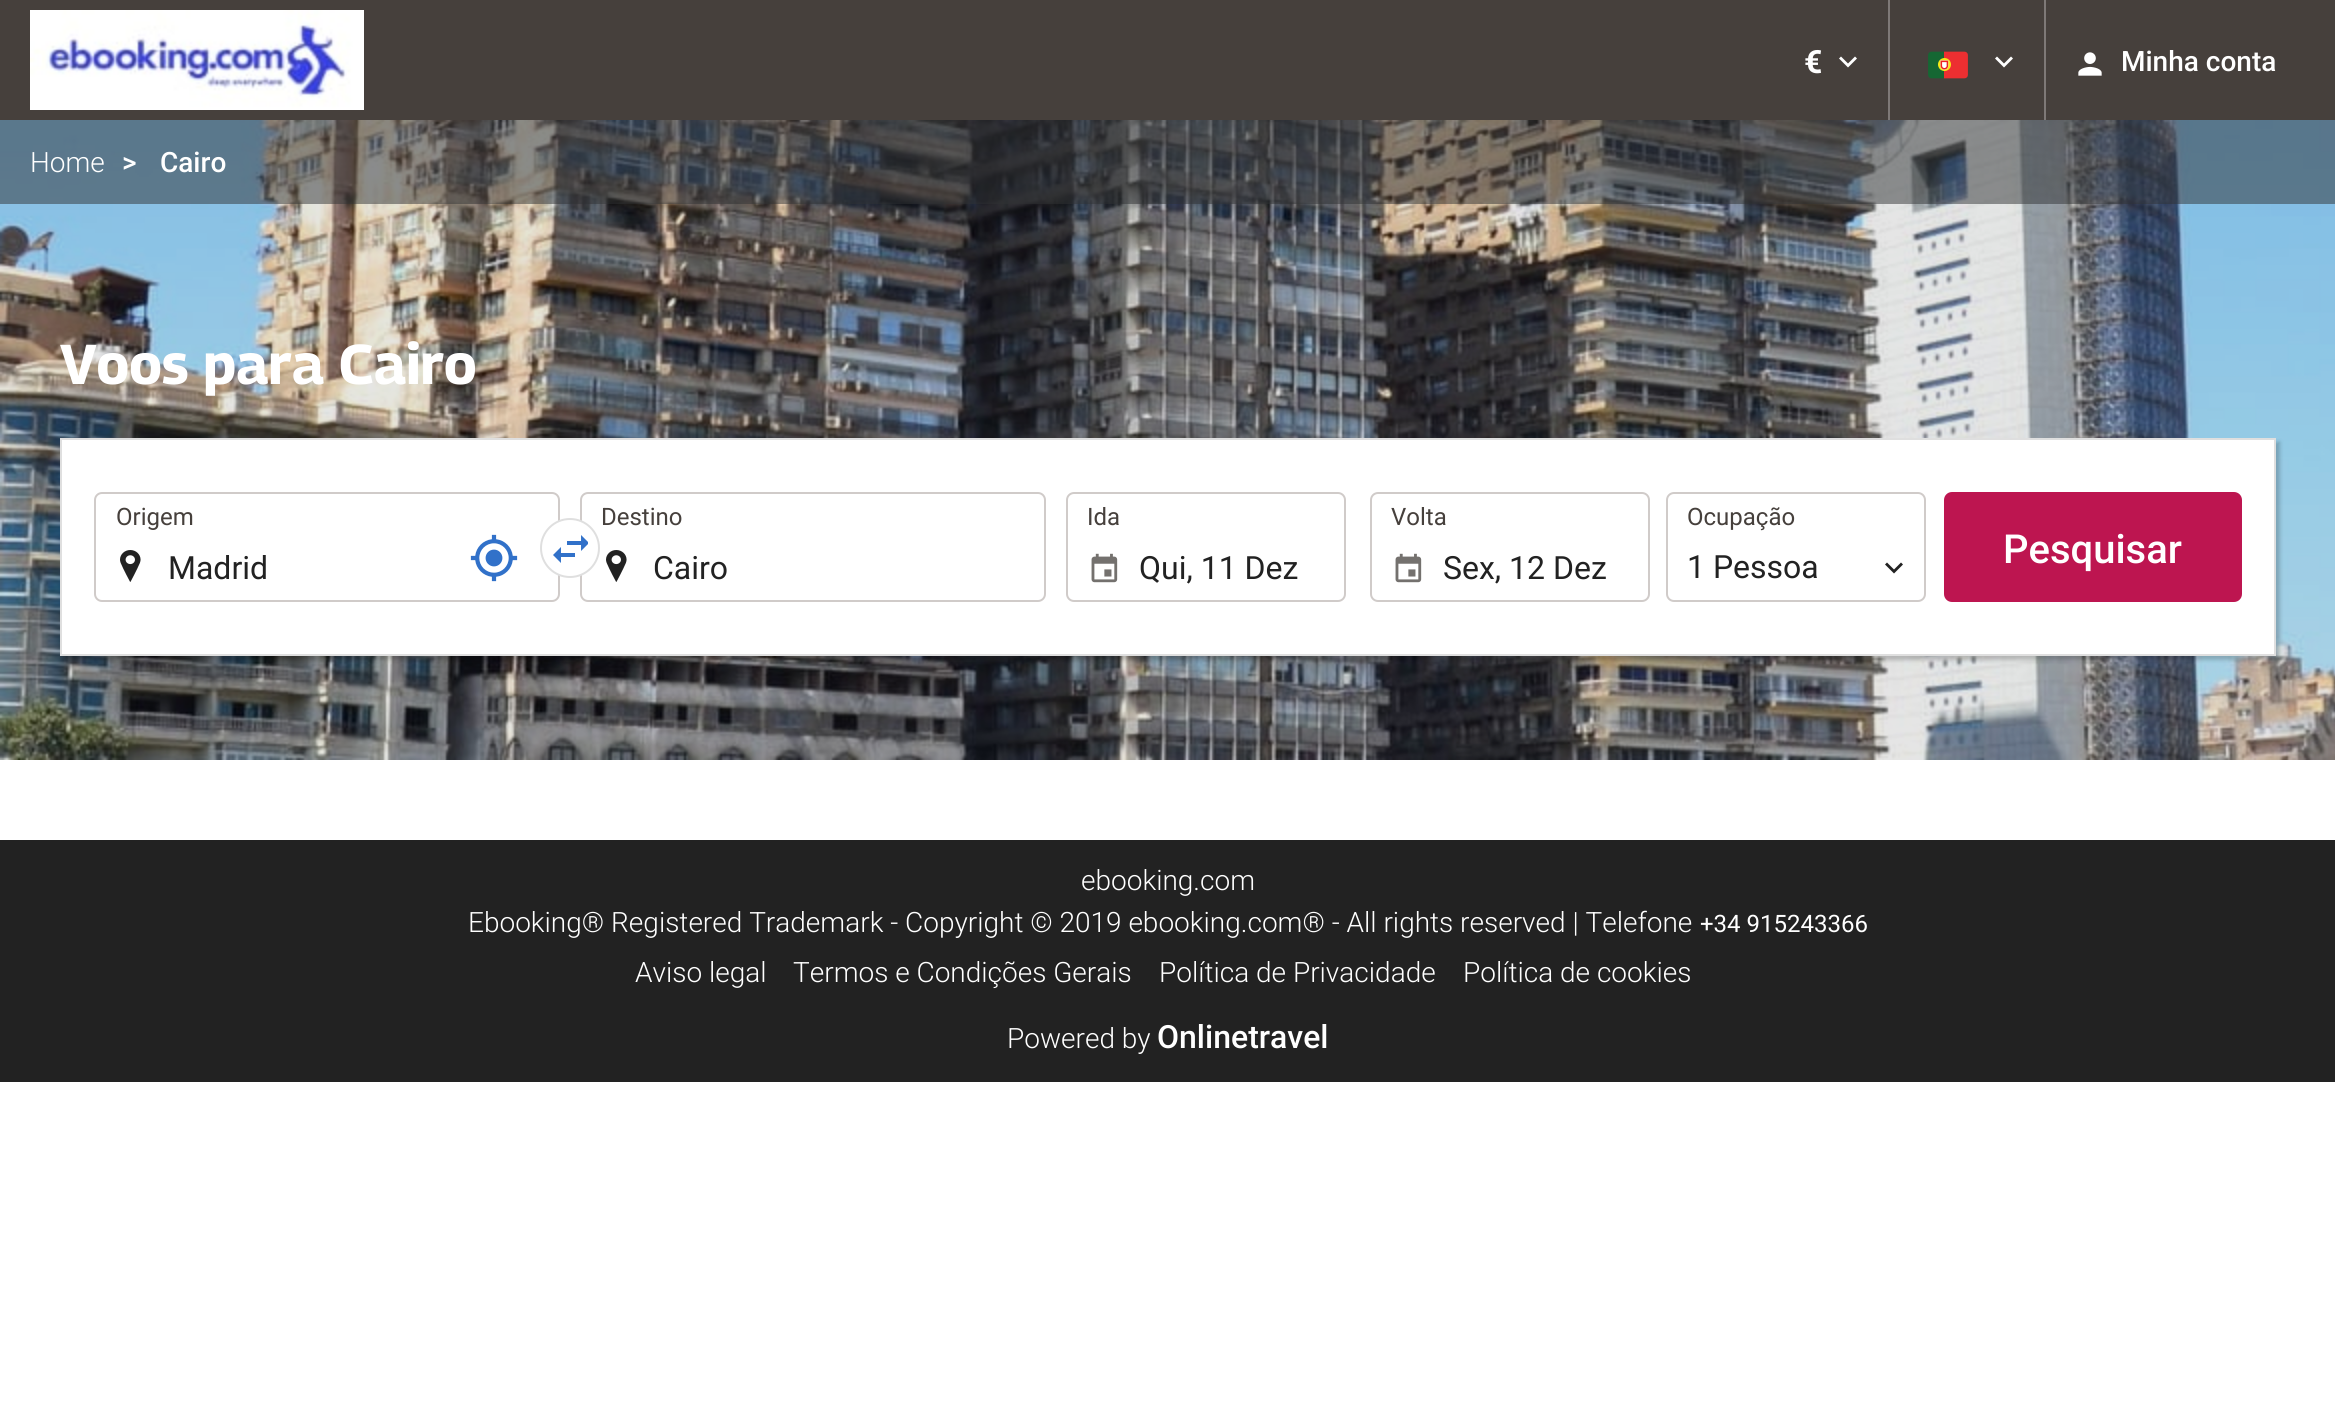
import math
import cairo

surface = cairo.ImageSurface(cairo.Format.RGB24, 2335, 1408)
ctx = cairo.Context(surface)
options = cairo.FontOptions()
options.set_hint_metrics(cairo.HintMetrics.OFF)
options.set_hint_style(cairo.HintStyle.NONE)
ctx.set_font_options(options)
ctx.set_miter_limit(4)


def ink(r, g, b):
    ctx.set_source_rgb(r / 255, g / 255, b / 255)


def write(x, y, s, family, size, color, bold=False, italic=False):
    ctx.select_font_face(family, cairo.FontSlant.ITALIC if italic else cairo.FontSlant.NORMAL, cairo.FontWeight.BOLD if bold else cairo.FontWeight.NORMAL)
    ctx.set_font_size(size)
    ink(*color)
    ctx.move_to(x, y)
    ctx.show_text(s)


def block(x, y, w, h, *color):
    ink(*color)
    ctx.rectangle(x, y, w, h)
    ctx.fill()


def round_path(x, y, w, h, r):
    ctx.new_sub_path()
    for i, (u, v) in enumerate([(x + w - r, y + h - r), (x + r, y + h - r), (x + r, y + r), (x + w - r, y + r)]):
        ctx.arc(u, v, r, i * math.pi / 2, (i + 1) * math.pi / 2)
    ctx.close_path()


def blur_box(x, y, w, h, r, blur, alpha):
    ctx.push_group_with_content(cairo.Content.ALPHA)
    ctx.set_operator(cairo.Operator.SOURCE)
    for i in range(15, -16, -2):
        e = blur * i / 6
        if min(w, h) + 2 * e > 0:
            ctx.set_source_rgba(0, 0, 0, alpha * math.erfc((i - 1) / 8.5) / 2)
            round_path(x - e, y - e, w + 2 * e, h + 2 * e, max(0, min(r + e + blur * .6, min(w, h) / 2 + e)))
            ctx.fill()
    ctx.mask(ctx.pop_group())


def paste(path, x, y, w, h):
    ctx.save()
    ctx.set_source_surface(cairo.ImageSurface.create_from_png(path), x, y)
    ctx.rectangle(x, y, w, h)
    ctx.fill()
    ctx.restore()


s1 = dict(family="Roboto", size=32, color=(255, 255, 255), bold=True)
s2 = dict(family="Roboto Medium", size=28, color=(255, 255, 255))
s3 = dict(family="Roboto Light", size=28, color=(255, 255, 255))
s4 = dict(family="Georama", size=56, color=(255, 255, 255), bold=True)
s5 = dict(family="Roboto", size=24, color=(70, 64, 60))
s6 = dict(family="Roboto", size=32, color=(34, 34, 34))
s7 = dict(family="Roboto Medium", size=40, color=(255, 255, 255))
s8 = dict(family="Roboto", size=24, color=(255, 255, 255))
s9 = dict(family="Roboto Medium", size=32, color=(255, 255, 255))

ink(255, 255, 255)
ctx.paint()
block(0, 0, 2335, 120, 70, 64, 60)
paste("pic1.png", 30, 10, 334, 100)
block(1888, 0, 2, 120, 126, 121, 119)
write(1804, 73, "€", **s1)
ctx.set_fill_rule(cairo.FillRule.EVEN_ODD)
ctx.new_path()
ctx.move_to(1841, 56.5)
ctx.line_to(1848, 63.5)
ctx.line_to(1855, 56.5)
ctx.line_to(1857, 58.5)
ctx.line_to(1848, 67.5)
ctx.line_to(1839, 58.5)
ctx.close_path()
ctx.fill()
block(2044, 0, 2, 120, 126, 121, 119)
paste("pic2.png", 1928, 51, 40, 28)
ink(255, 255, 255)
ctx.new_path()
ctx.move_to(1997, 56.5)
ctx.line_to(2004, 63.5)
ctx.line_to(2011, 56.5)
ctx.line_to(2013, 58.5)
ctx.line_to(2004, 67.5)
ctx.line_to(1995, 58.5)
ctx.close_path()
ctx.fill()
paste("pic3.png", 2078, 52, 24, 24)
write(2121, 71, "Minha conta", **s2)
paste("pic4.png", 0, 120, 2335, 640)
ctx.set_source_rgba(0.188, 0.196, 0.208, 0.5)
ctx.rectangle(0, 120, 2335, 84)
ctx.fill()
write(30, 172, "Home", **s3)
write(122, 172, ">", **s2)
write(160, 172, "Cairo", **s2)
write(60, 384, "Voos para Cairo", **s4)
ink(0, 0, 0)
blur_box(64, 442, 2216, 218, 0, 2, 0.2)
ink(255, 255, 255)
ctx.rectangle(61, 439, 2214, 216)
ctx.fill_preserve()
ink(223, 223, 223)
ctx.stroke()
paste("pic5.png", 120, 550, 21, 32)
round_path(95, 493, 464, 108, 7)
ink(208, 203, 201)
ctx.stroke()
write(116, 525, "Origem", **s5)
write(168, 579, "Madrid", **s6)
paste("pic6.png", 470, 534, 48, 48)
paste("pic5.png", 606, 550, 21, 32)
round_path(581, 493, 464, 108, 7)
ink(208, 203, 201)
ctx.stroke()
ink(255, 255, 255)
ctx.arc(570, 548, 29, 0, 2 * math.pi)
ctx.fill_preserve()
ink(223, 223, 223)
ctx.stroke()
paste("pic7.png", 553, 535, 35, 28)
write(601, 525, "Destino", **s5)
write(653, 579, "Cairo", **s6)
paste("pic8.png", 1091, 553, 27, 30)
round_path(1067, 493, 278, 108, 7)
ink(208, 203, 201)
ctx.stroke()
write(1087, 525, "Ida", **s5)
write(1139, 579, "Qui, 11 Dez", **s6)
paste("pic8.png", 1395, 553, 27, 30)
round_path(1371, 493, 278, 108, 7)
ink(208, 203, 201)
ctx.stroke()
write(1391, 525, "Volta", **s5)
write(1443, 579, "Sex, 12 Dez", **s6)
round_path(1667, 493, 258, 108, 7)
ink(208, 203, 201)
ctx.stroke()
write(1687, 525, "Ocupação", **s5)
write(1687, 578, "1 Pessoa", **s6)
ctx.new_path()
ctx.move_to(1887, 562.5)
ctx.line_to(1894, 569.5)
ctx.line_to(1901, 562.5)
ctx.line_to(1903, 564.5)
ctx.line_to(1894, 573.5)
ctx.line_to(1885, 564.5)
ctx.close_path()
ctx.fill()
ink(189, 21, 80)
round_path(1944, 492, 298, 110, 8)
ctx.fill()
write(2003, 563, "Pesquisar", **s7)
block(0, 840, 2335, 242, 34, 34, 34)
write(1081, 890, "ebooking.com", **s3)
write(468, 932, "Ebooking® Registered Trademark - Copyright © 2019 ebooking.com® - All rights reserved | Telefone", **s3)
write(1700, 932, "+34 915243366", **s8)
write(635, 982, "Aviso legal", **s3)
write(793, 982, "Termos e Condições Gerais", **s3)
write(1159, 982, "Política de Privacidade", **s3)
write(1463, 982, "Política de cookies", **s3)
write(1007, 1048, "Powered by", **s3)
write(1157, 1048, "Onlinetravel", **s9)
surface.write_to_png("screenshot.png")
